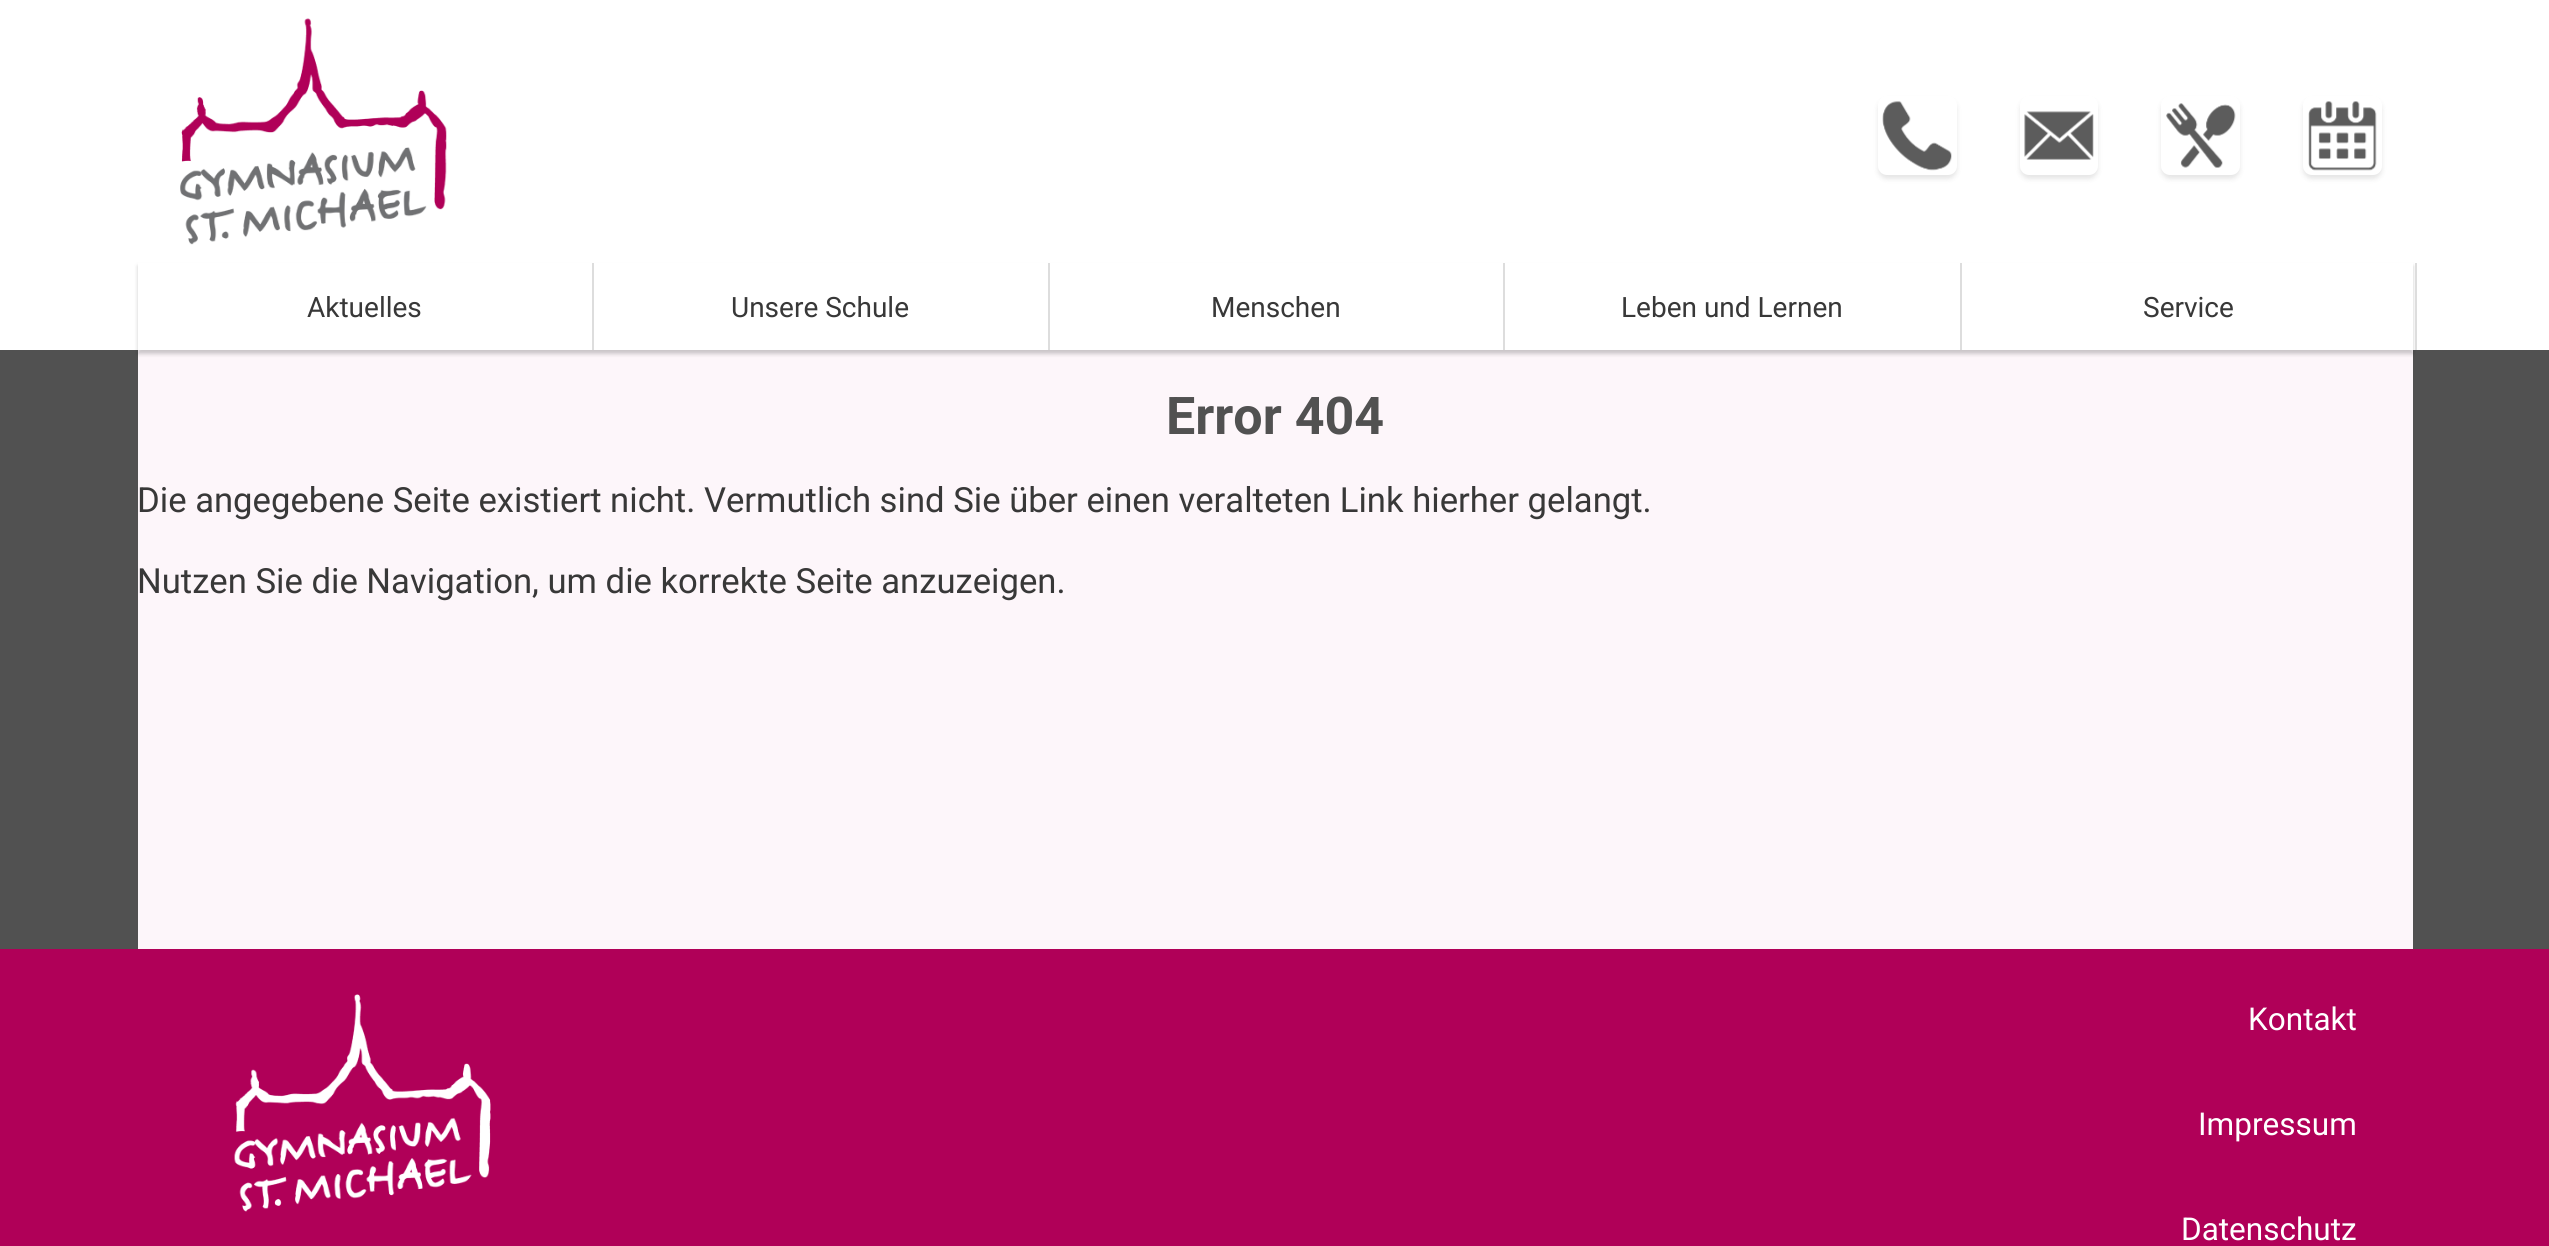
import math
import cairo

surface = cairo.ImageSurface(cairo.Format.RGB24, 2549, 1246)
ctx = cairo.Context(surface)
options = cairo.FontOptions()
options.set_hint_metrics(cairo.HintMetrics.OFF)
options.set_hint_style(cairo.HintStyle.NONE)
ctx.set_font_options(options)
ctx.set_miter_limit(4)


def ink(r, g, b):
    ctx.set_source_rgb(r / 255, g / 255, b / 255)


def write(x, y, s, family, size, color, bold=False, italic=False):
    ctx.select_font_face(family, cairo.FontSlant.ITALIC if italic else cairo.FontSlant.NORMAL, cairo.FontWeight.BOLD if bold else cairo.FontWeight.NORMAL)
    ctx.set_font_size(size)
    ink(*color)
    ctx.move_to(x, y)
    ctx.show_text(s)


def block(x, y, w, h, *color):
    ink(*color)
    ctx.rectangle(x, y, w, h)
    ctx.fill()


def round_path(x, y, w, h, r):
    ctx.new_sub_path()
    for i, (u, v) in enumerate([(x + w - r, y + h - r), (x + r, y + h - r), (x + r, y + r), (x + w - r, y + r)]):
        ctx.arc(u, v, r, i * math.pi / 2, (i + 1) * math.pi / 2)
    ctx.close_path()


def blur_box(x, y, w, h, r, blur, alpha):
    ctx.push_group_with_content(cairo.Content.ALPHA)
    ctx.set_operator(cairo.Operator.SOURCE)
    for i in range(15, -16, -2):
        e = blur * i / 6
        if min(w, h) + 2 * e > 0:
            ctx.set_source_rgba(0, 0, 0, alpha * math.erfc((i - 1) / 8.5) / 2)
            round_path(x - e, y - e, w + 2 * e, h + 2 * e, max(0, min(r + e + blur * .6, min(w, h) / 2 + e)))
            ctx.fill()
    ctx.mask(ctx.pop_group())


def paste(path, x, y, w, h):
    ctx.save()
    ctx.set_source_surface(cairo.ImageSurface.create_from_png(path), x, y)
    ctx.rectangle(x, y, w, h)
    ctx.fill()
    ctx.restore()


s1 = dict(family="Roboto", size=28, color=(56, 56, 56))
s2 = dict(family="Roboto", size=52, color=(81, 81, 81), bold=True)
s3 = dict(family="Roboto", size=34.65, color=(56, 56, 56))
s4 = dict(family="Roboto", size=31.5, color=(255, 255, 255))

ink(81, 81, 81)
ctx.paint()
block(0, 0, 2549, 350, 255, 255, 255)
paste("pic1.png", 180, 18, 267, 227)
block(138, 350, 2275, 599, 253, 246, 250)
ink(0, 0, 0)
blur_box(138, 266, 2275, 88, 0, 2, 0.2)
block(138, 263, 2275, 87, 255, 255, 255)
ink(0, 0, 0)
blur_box(1878, 100, 79, 79, 9, 2.5, 0.1)
ink(255, 255, 255)
round_path(1878, 96, 79, 79, 9)
ctx.fill()
paste("pic2.png", 1882, 101, 70, 70)
ink(0, 0, 0)
blur_box(2020, 100, 78, 79, 9, 2.5, 0.1)
ink(255, 255, 255)
round_path(2020, 96, 78, 79, 9)
ctx.fill()
paste("pic3.png", 2024, 111, 70, 49)
ink(0, 0, 0)
blur_box(2161, 100, 79, 79, 9, 2.5, 0.1)
ink(255, 255, 255)
round_path(2161, 96, 79, 79, 9)
ctx.fill()
paste("pic4.png", 2166, 103, 70, 65)
ink(0, 0, 0)
blur_box(2303, 100, 79, 79, 9, 2.5, 0.1)
ink(255, 255, 255)
round_path(2303, 96, 79, 79, 9)
ctx.fill()
paste("pic5.png", 2308, 101, 69, 70)
block(592, 263, 2, 87, 221, 221, 221)
write(307, 317, "Aktuelles", **s1)
block(1048, 263, 2, 87, 221, 221, 221)
write(731, 317, "Unsere Schule", **s1)
block(1503, 263, 2, 87, 221, 221, 221)
write(1211, 317, "Menschen", **s1)
block(1960, 263, 2, 87, 221, 221, 221)
write(1621, 317, "Leben und Lernen", **s1)
block(2415, 263, 2, 87, 221, 221, 221)
write(2143, 317, "Service", **s1)
write(1166, 434, "Error 404", **s2)
write(137, 512, "Die angegebene Seite existiert nicht. Vermutlich sind Sie über einen veralteten Link hierher gelangt.", **s3)
write(137, 593, "Nutzen Sie die Navigation, um die korrekte Seite anzuzeigen.", **s3)
block(0, 949, 2549, 297, 176, 0, 88)
paste("pic6.png", 234, 994, 257, 218)
write(2248, 1030, "Kontakt", **s4)
write(2198, 1135, "Impressum", **s4)
write(2181, 1240, "Datenschutz", **s4)
surface.write_to_png("screenshot.png")
